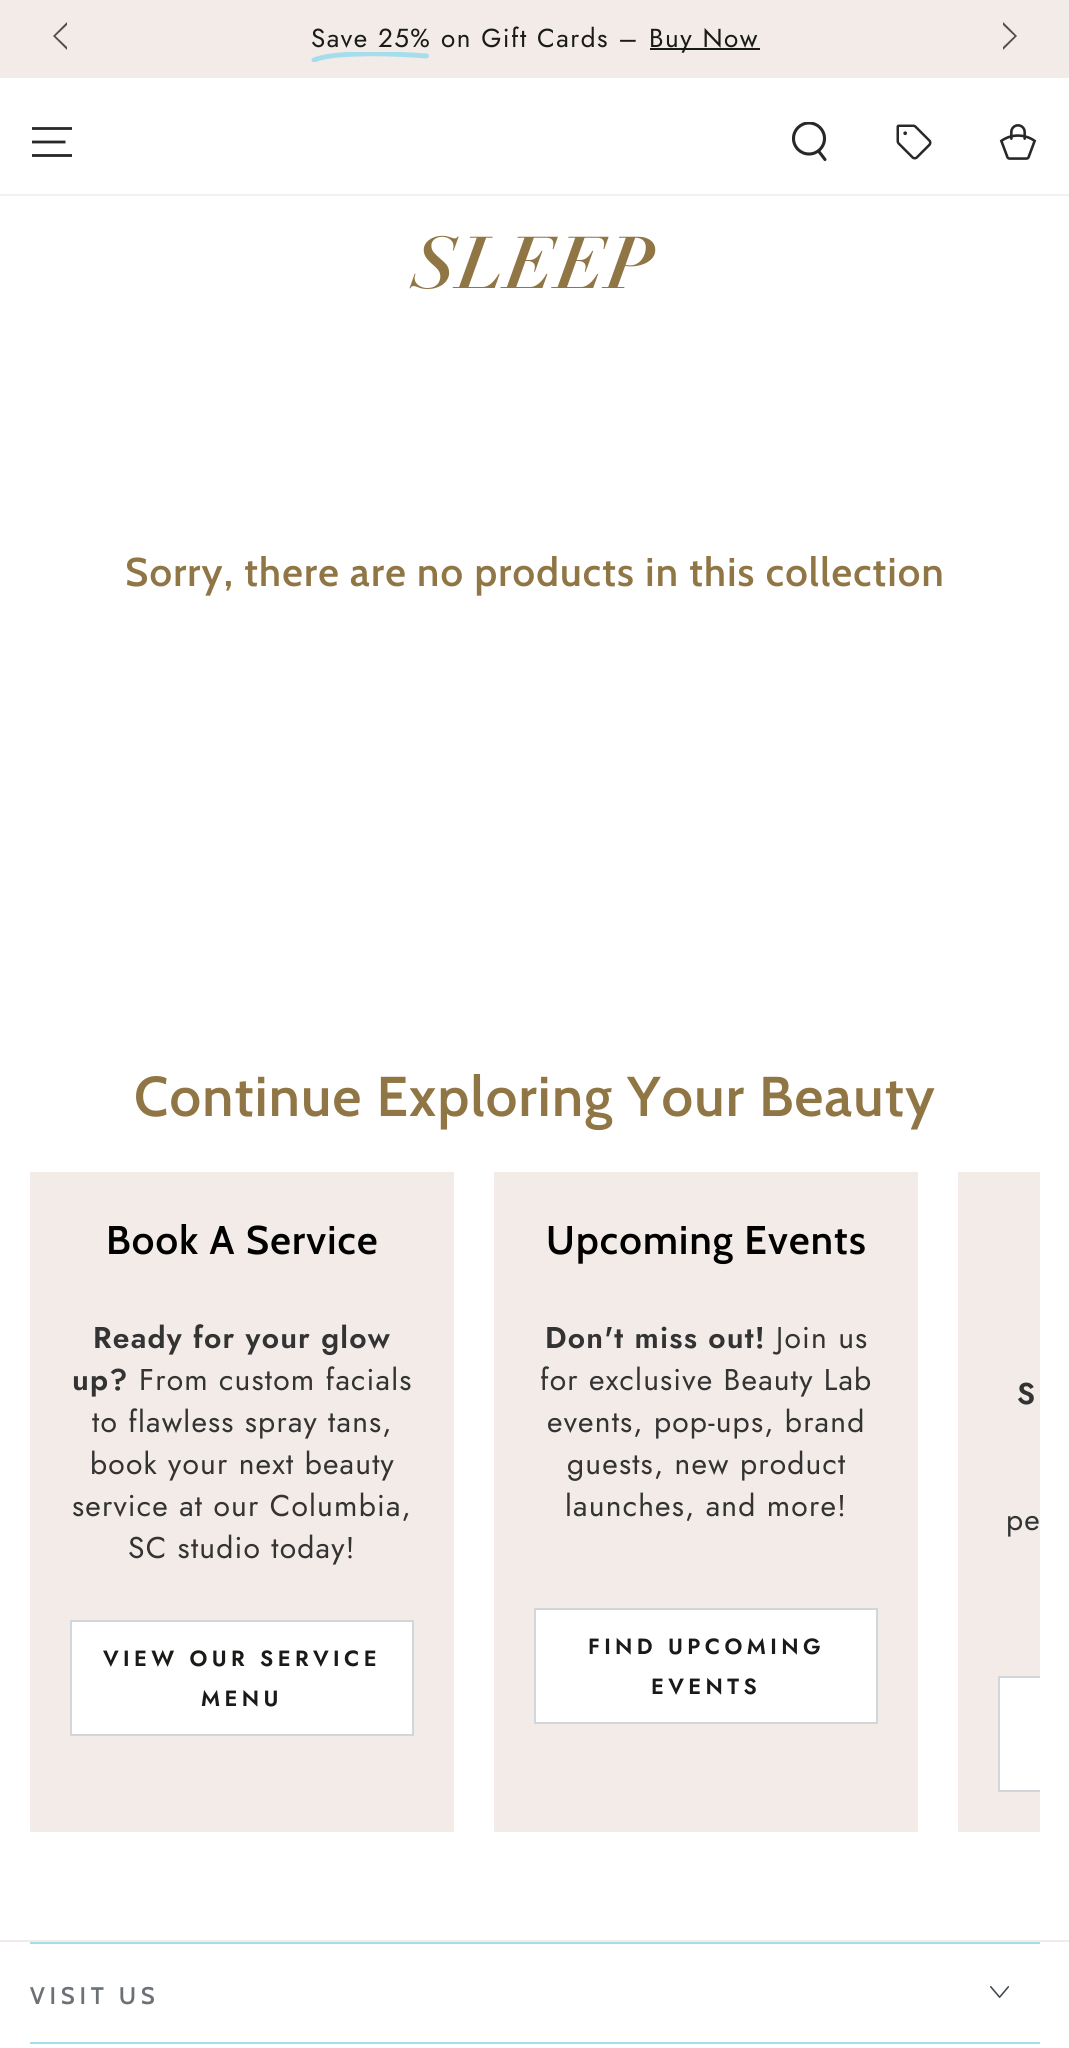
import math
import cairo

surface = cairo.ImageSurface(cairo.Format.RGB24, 1069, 2048)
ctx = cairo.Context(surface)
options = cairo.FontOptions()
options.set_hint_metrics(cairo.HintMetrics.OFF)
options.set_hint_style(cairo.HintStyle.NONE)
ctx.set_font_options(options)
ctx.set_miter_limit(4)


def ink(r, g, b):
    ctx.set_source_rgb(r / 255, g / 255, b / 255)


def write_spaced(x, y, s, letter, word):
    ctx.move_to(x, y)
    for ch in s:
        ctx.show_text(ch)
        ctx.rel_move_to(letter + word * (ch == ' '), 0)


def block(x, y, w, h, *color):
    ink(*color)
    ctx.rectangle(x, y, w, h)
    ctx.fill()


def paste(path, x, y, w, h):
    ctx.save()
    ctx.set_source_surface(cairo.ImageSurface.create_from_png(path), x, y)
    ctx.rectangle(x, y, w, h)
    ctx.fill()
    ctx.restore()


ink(255, 255, 255)
ctx.paint()
block(0, 0, 1069, 78, 242, 235, 231)
ink(80, 79, 76)
ctx.set_fill_rule(cairo.FillRule.EVEN_ODD)
ctx.new_path()
ctx.move_to(53, 36)
ctx.line_to(67, 50)
ctx.line_to(67, 47)
ctx.line_to(55.5, 36)
ctx.line_to(67, 25)
ctx.line_to(67, 22)
ctx.close_path()
ctx.fill()
ctx.new_path()
ctx.move_to(1017, 36)
ctx.line_to(1003, 50)
ctx.line_to(1003, 47)
ctx.line_to(1014.5, 36)
ctx.line_to(1003, 25)
ctx.line_to(1003, 22)
ctx.close_path()
ctx.fill()
ctx.select_font_face("Jost")
ctx.set_font_size(26)
ink(26, 27, 24)
write_spaced(311, 47, "Save 25%", 1.5, 0)
ctx.save()
ctx.set_fill_rule(cairo.FillRule.WINDING)
ctx.rectangle(310, 52, 122, 10)
ctx.clip()
ctx.new_path()
ctx.move_to(314, 60)
ctx.curve_to(323, 56.5, 335, 54.5, 361.5, 54)
ctx.curve_to(370.5, 53.5, 393, 53.5, 426.5, 56)
ink(165, 221, 236)
ctx.set_line_width(4.9)
ctx.set_line_cap(cairo.LineCap.ROUND)
ctx.stroke()
ctx.restore()
write_spaced(441, 47, "on Gift Cards –", 1.5, 0)
block(650, 48, 110, 2, 26, 27, 24)
write_spaced(649, 47, "Buy Now", 1.5, 0)
block(0, 194, 1069, 2, 242, 242, 244)
ctx.new_path()
ctx.move_to(32, 155.5)
ctx.line_to(72, 155.5)
ctx.move_to(32, 142)
ctx.line_to(65.5, 142)
ctx.move_to(32, 128.5)
ctx.line_to(72, 128.5)
ink(40, 40, 40)
ctx.set_line_width(2.8)
ctx.stroke()
ctx.save()
ctx.set_fill_rule(cairo.FillRule.WINDING)
ctx.rectangle(790, 122, 40, 40)
ctx.clip()
ctx.arc(809, 138.5, 15.5, 0, 2 * math.pi)
ctx.set_line_width(3.1)
ctx.stroke()
ctx.restore()
ctx.new_path()
ctx.move_to(818.5, 151)
ctx.line_to(825, 159.5)
ctx.set_line_width(3.1)
ctx.set_line_cap(cairo.LineCap.ROUND)
ctx.stroke()
paste("pic1.png", 896, 124, 36, 36)
paste("pic2.png", 999, 124, 38, 36)
ctx.select_font_face("Didot", cairo.FontSlant.ITALIC, cairo.FontWeight.BOLD)
ctx.set_font_size(72)
ink(144, 118, 69)
write_spaced(413, 288, "SLEEP", 1.2, 0)
ctx.select_font_face("Cabin SemiBold")
ctx.set_font_size(40)
write_spaced(125, 586, "Sorry, there are no products in this collection", 1.2, 0)
ctx.set_font_size(56)
write_spaced(134, 1116, "Continue Exploring Your Beauty", 1.2, 0)
block(30, 1172, 424, 660, 242, 235, 231)
ctx.set_font_size(40)
ink(0, 0, 0)
write_spaced(106, 1254, "Book A Service", 1.2, 0)
ctx.select_font_face("Jost SemiBold")
ctx.set_font_size(30)
ink(51, 51, 51)
write_spaced(93, 1348, "Ready for your glow", 1.2, 0)
write_spaced(72, 1390, "up?", 1.2, 0)
ctx.select_font_face("Jost")
write_spaced(139, 1390, "From custom facials", 1.2, 0)
write_spaced(92, 1432, "to flawless spray tans,", 1.2, 0)
write_spaced(90, 1474, "book your next beauty", 1.2, 0)
write_spaced(72, 1516, "service at our Columbia,", 1.2, 0)
write_spaced(128, 1558, "SC studio today!", 1.2, 0)
ink(255, 255, 255)
ctx.rectangle(71, 1621, 342, 114)
ctx.fill_preserve()
ink(210, 213, 217)
ctx.set_line_width(2)
ctx.set_line_cap(cairo.LineCap.BUTT)
ctx.stroke()
ctx.select_font_face("Jost SemiBold")
ctx.set_font_size(22)
ink(26, 27, 24)
write_spaced(103, 1666, "VIEW OUR SERVICE", 4.4, 0)
write_spaced(201, 1706, "MENU", 4.4, 0)
block(494, 1172, 424, 660, 242, 235, 231)
ctx.select_font_face("Cabin SemiBold")
ctx.set_font_size(40)
ink(0, 0, 0)
write_spaced(546, 1254, "Upcoming Events", 1.2, 0)
ctx.select_font_face("Jost SemiBold")
ctx.set_font_size(30)
ink(51, 51, 51)
write_spaced(545, 1348, "Don't miss out!", 1.2, 0)
ctx.select_font_face("Jost")
write_spaced(776, 1348, "Join us", 1.2, 0)
write_spaced(540, 1390, "for exclusive Beauty Lab", 1.2, 0)
write_spaced(547, 1432, "events, pop-ups, brand", 1.2, 0)
write_spaced(567, 1474, "guests, new product", 1.2, 0)
write_spaced(565, 1516, "launches, and more!", 1.2, 0)
ink(255, 255, 255)
ctx.rectangle(535, 1609, 342, 114)
ctx.fill_preserve()
ink(210, 213, 217)
ctx.stroke()
ctx.select_font_face("Jost SemiBold")
ctx.set_font_size(22)
ink(26, 27, 24)
write_spaced(588, 1654, "FIND UPCOMING", 4.4, 0)
write_spaced(651, 1694, "EVENTS", 4.4, 0)
block(958, 1172, 82, 660, 242, 235, 231)
ctx.set_font_size(30)
ink(51, 51, 51)
write_spaced(1017, 1404, "S", 1.2, 0)
ctx.select_font_face("Jost")
write_spaced(1006, 1530, "pe", 1.2, 0)
block(1000, 1678, 40, 112, 255, 255, 255)
ctx.save()
ctx.set_fill_rule(cairo.FillRule.WINDING)
ctx.rectangle(958, 1172, 82, 660)
ctx.clip()
ctx.rectangle(999, 1677, 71, 114)
ink(210, 213, 217)
ctx.stroke()
ctx.restore()
block(0, 1940, 1069, 2, 242, 235, 231)
block(30, 1942, 1010, 2, 165, 221, 236)
block(30, 2042, 1010, 2, 165, 221, 236)
ctx.select_font_face("Cabin SemiBold")
ctx.set_font_size(24)
ink(107, 113, 119)
write_spaced(30, 2004, "VISIT US", 4.75, 0)
paste("pic3.png", 990, 1986, 20, 12)
surface.write_to_png("screenshot.png")
